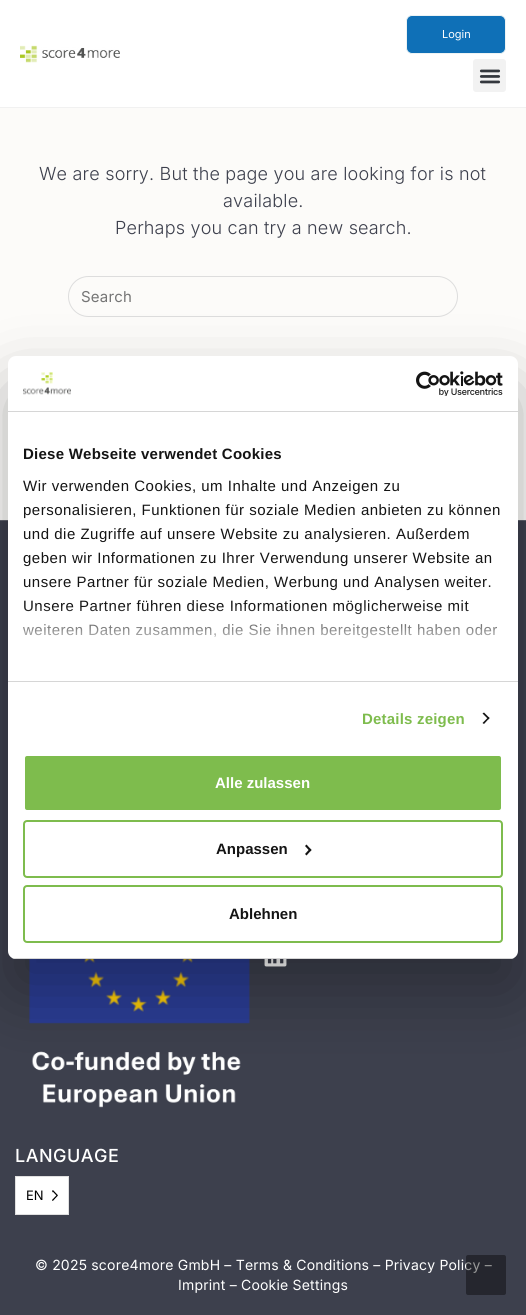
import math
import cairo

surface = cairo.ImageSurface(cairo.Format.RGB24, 526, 1315)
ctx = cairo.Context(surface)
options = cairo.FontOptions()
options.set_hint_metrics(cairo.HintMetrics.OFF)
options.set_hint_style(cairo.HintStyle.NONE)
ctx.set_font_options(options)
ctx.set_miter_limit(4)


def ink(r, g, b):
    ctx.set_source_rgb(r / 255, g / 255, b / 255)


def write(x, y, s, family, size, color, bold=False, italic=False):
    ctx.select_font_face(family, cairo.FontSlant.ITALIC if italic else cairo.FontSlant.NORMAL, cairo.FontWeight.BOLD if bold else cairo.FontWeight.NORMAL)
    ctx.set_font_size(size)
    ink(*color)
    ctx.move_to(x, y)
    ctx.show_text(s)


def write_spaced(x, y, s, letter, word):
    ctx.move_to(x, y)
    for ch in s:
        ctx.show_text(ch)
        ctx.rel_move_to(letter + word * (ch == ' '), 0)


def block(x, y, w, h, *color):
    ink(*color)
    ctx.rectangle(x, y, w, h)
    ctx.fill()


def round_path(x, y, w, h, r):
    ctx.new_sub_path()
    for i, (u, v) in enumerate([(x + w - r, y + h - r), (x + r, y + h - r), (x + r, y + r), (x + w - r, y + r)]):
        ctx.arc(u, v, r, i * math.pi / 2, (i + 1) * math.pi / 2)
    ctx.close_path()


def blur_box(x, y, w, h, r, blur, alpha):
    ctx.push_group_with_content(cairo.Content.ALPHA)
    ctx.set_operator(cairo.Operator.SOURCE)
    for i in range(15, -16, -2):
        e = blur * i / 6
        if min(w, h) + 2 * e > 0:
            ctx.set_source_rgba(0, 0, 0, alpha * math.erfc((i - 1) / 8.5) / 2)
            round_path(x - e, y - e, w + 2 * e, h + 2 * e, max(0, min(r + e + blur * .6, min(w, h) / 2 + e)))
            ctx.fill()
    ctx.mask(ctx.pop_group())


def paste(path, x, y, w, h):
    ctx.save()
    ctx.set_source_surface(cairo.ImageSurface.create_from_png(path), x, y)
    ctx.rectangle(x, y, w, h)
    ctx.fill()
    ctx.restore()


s1 = dict(family="Inter", size=11, color=(255, 255, 255))
s2 = dict(family="Inter", size=13, color=(0, 0, 0))
s3 = dict(family="Liberation Sans", size=15, color=(255, 255, 255), bold=True)
s4 = dict(family="Liberation Sans", size=15, color=(20, 20, 20), bold=True)

ink(252, 251, 249)
ctx.paint()
block(0, 0, 526, 107, 255, 255, 255)
block(0, 107, 526, 1, 241, 241, 241)
ink(15, 112, 183)
round_path(406.5, 15.5, 99, 38, 5.5)
ctx.fill_preserve()
ink(237, 243, 244)
ctx.set_line_width(1)
ctx.stroke()
write(442, 38, "Login", **s1)
ink(242, 242, 242)
round_path(473, 59, 33, 33, 3)
ctx.fill()
paste("pic1.png", 479, 69, 22, 15)
paste("pic2.png", 20, 45, 100, 18)
ctx.select_font_face("Inter Light")
ctx.set_font_size(18)
ink(61, 64, 77)
write_spaced(39, 180, "We are sorry. But the page you are looking for is not", 0.2, 0)
write_spaced(223, 207, "available.", 0.2, 0)
write_spaced(115, 234, "Perhaps you can try a new search.", 0.2, 0)
round_path(68.5, 276.5, 389, 40, 20)
ink(221, 221, 221)
ctx.stroke()
ctx.select_font_face("Inter")
ctx.set_font_size(15)
ink(117, 117, 117)
write_spaced(81, 302, "Search", 0.2, 0)
block(0, 521, 526, 794, 61, 64, 77)
block(0, 520, 526, 1, 98, 100, 111)
paste("pic3.png", 29, 959, 221, 149)
paste("pic4.png", 264, 959, 23, 8)
ctx.select_font_face("Inter Medium")
ctx.set_font_size(18)
ink(255, 255, 255)
write_spaced(15, 1162, "LANGUAGE", 0.5, 0)
ctx.rectangle(15.5, 1176.5, 53, 38)
ctx.fill_preserve()
ink(224, 224, 224)
ctx.stroke()
write(26, 1200, "EN", **s2)
paste("pic5.png", 52, 1190, 6, 11)
ctx.set_font_size(14)
ink(255, 255, 255)
write_spaced(35, 1270, "© 2025 score4more GmbH – Terms & Conditions – Privacy Policy –", 0.2, 0)
write_spaced(178, 1290, "Imprint – Cookie Settings", 0.2, 0)
ink(0, 0, 0)
blur_box(8, 388, 510, 603, 8, 34, 0.3)
ink(255, 255, 255)
round_path(8, 356, 510, 603, 8)
ctx.fill()
block(8, 411, 510, 1, 214, 214, 214)
paste("pic6.png", 23, 372, 48, 23)
paste("pic7.png", 416, 371, 87, 25)
block(8, 681, 510, 1, 214, 214, 214)
ctx.select_font_face("Liberation Sans", cairo.FontSlant.NORMAL, cairo.FontWeight.BOLD)
ctx.set_font_size(15)
ink(20, 20, 20)
write_spaced(23, 459, "Diese Webseite verwendet Cookies", 0.25, 0)
ctx.select_font_face("Liberation Sans")
write_spaced(23, 491, "Wir verwenden Cookies, um Inhalte und Anzeigen zu", 0.5, 0)
write_spaced(23, 515, "personalisieren, Funktionen für soziale Medien anbieten zu können", 0.5, 0)
write_spaced(23, 539, "und die Zugriffe auf unsere Website zu analysieren. Außerdem", 0.5, 0)
write_spaced(23, 563, "geben wir Informationen zu Ihrer Verwendung unserer Website an", 0.5, 0)
write_spaced(23, 587, "unsere Partner für soziale Medien, Werbung und Analysen weiter.", 0.5, 0)
write_spaced(23, 611, "Unsere Partner führen diese Informationen möglicherweise mit", 0.5, 0)
write_spaced(23, 635, "weiteren Daten zusammen, die Sie ihnen bereitgestellt haben oder", 0.5, 0)
gradient = cairo.LinearGradient(257, 681, 257, 606)
gradient.add_color_stop_rgba(0, 1, 1, 1, 1)
gradient.add_color_stop_rgba(0.5, 1, 1, 1, 0.8)
gradient.add_color_stop_rgba(1, 1, 1, 1, 0)
ctx.set_source(gradient)
ctx.rectangle(23, 607, 474, 32)
ctx.fill()
ctx.select_font_face("Liberation Sans", cairo.FontSlant.NORMAL, cairo.FontWeight.BOLD)
ink(126, 188, 77)
write_spaced(362, 724, "Details zeigen", 0.2, 0)
ink(20, 20, 20)
ctx.new_path()
ctx.move_to(484, 712.5)
ctx.line_to(489.5, 718)
ctx.line_to(488.5, 719.5)
ctx.line_to(482.5, 713.5)
ctx.close_path()
ctx.fill()
ctx.new_path()
ctx.move_to(488.5, 717)
ctx.line_to(489.5, 718)
ctx.line_to(484, 724)
ctx.line_to(482.5, 723)
ctx.close_path()
ctx.fill()
ctx.save()
round_path(8, 356, 510, 603, 8)
ctx.clip()
block(8, 958, 510, 1, 214, 214, 214)
ctx.restore()
ink(126, 188, 77)
round_path(24, 755, 478, 56, 3)
ctx.fill_preserve()
ink(255, 255, 255)
ctx.set_line_width(2)
ctx.stroke()
write(215, 788, "Alle zulassen", **s3)
round_path(24, 821, 478, 56, 3)
ink(126, 188, 77)
ctx.stroke()
write(216, 854, "Anpassen", **s4)
ctx.new_path()
ctx.move_to(306.5, 844.5)
ctx.line_to(311.5, 850)
ctx.line_to(310, 851.5)
ctx.line_to(305, 846)
ctx.close_path()
ctx.fill()
ctx.new_path()
ctx.move_to(310, 848.5)
ctx.line_to(311.5, 850)
ctx.line_to(306.5, 855.5)
ctx.line_to(305, 854)
ctx.close_path()
ctx.fill()
round_path(24, 886, 478, 56, 3)
ink(126, 188, 77)
ctx.stroke()
write(229, 919, "Ablehnen", **s4)
ctx.set_source_rgba(0, 0, 0, 0.4)
round_path(466, 1255, 40, 40, 2)
ctx.fill()
surface.write_to_png("screenshot.png")
